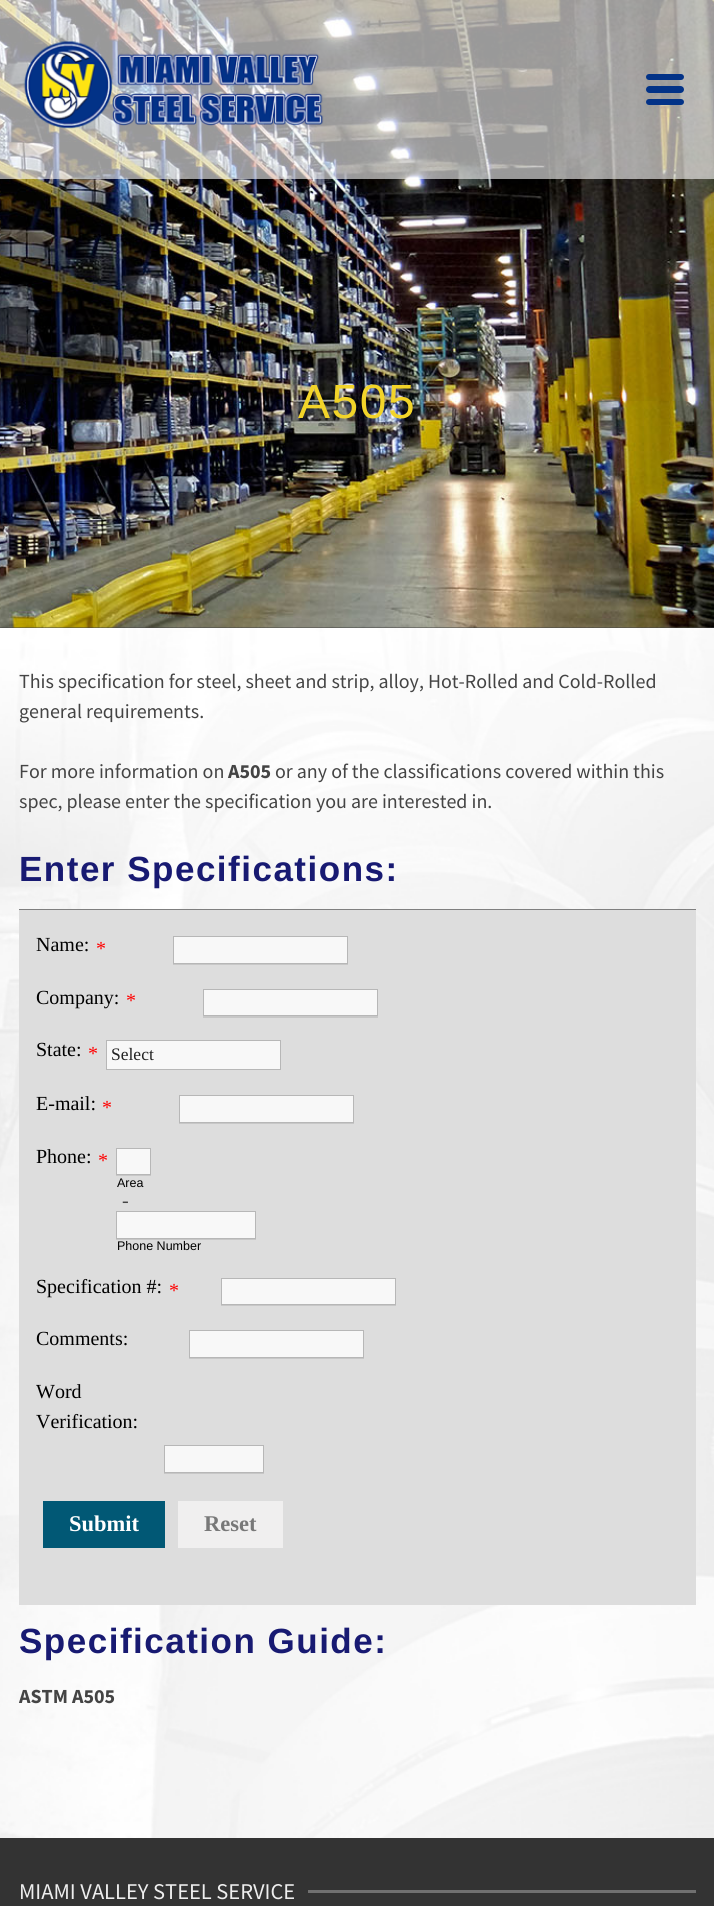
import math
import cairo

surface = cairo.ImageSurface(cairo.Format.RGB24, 714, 1906)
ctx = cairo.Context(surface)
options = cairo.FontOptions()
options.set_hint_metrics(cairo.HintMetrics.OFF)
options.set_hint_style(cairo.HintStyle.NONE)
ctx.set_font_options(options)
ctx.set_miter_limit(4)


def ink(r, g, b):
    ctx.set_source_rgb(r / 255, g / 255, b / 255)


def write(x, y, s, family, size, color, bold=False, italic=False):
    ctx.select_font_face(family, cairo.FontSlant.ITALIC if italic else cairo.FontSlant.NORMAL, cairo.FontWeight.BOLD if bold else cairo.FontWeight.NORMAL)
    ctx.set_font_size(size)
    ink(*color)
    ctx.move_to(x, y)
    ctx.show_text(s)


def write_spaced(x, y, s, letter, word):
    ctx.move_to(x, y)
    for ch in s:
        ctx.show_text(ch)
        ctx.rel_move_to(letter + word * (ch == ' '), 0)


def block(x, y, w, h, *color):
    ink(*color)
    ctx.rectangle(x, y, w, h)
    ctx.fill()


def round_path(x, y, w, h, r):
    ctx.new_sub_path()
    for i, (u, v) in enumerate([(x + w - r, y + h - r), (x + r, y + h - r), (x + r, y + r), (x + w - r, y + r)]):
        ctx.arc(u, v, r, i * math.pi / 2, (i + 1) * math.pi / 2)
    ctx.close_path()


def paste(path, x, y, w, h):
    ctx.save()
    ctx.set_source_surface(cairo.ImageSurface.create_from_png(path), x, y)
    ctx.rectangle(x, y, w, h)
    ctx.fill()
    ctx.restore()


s1 = dict(family="Source Sans Pro", size=20, color=(68, 68, 68))
s2 = dict(family="Source Sans Pro", size=20, color=(68, 68, 68), bold=True)
s3 = dict(family="Liberation Serif", size=20, color=(0, 0, 0))
s4 = dict(family="Liberation Serif", size=20, color=(255, 0, 0))
s5 = dict(family="Liberation Serif", size=17.5, color=(34, 34, 34))
s6 = dict(family="Liberation Sans", size=12.5, color=(0, 0, 0))
s7 = dict(family="Liberation Serif", size=20, color=(68, 68, 68))
s8 = dict(family="Liberation Serif", size=22.5, color=(255, 255, 255), bold=True)
s9 = dict(family="Liberation Serif", size=22.5, color=(120, 120, 120), bold=True)
s10 = dict(family="Source Sans Pro", size=22.5, color=(238, 238, 238))

ink(255, 255, 255)
ctx.paint()
paste("pic1.png", 0, 628, 714, 1210)
block(0, 627, 714, 1, 68, 68, 68)
paste("pic3.png", 0, 0, 714, 628)
ctx.set_source_rgba(1, 1, 1, 0.6)
ctx.rectangle(0, 0, 714, 179)
ctx.fill()
paste("pic2.png", 23, 41, 301, 88)
ink(2, 50, 135)
round_path(646, 74, 38, 6, 3)
ctx.fill()
round_path(646, 86, 38, 7, 3.5)
ctx.fill()
round_path(646, 99, 38, 6, 3)
ctx.fill()
ctx.select_font_face("Liberation Sans")
ctx.set_font_size(48)
ink(242, 212, 41)
write_spaced(298, 418, "A505", 1.5, 0)
write(19, 688, "This specification for steel, sheet and strip, alloy, Hot-Rolled and Cold-Rolled", **s1)
write(19, 718, "general requirements.", **s1)
write(19, 778, "For more information on", **s1)
write(228, 778, "A505", **s2)
write(275, 778, "or any of the classifications covered within this", **s1)
write(19, 808, "spec, please enter the specification you are interested in.", **s1)
ctx.select_font_face("Liberation Sans", cairo.FontSlant.NORMAL, cairo.FontWeight.BOLD)
ctx.set_font_size(35)
ink(24, 26, 114)
write_spaced(19, 881, "Enter Specifications:", 1.5, 0)
block(19, 909, 677, 1, 127, 127, 127)
block(19, 910, 677, 695, 221, 221, 221)
write(36, 951, "Name:", **s3)
write(96, 955, "*", **s4)
ink(199, 199, 199)
ctx.new_path()
ctx.move_to(173, 964)
ctx.line_to(173, 965)
ctx.line_to(348, 965)
ctx.line_to(348, 938)
ctx.line_to(348, 964)
ctx.close_path()
ctx.fill()
ink(248, 248, 248)
ctx.rectangle(173.5, 936.5, 174, 27)
ctx.fill_preserve()
ink(183, 183, 183)
ctx.set_line_width(1)
ctx.stroke()
write(36, 1004, "Company:", **s3)
write(126, 1007, "*", **s4)
ink(199, 199, 199)
ctx.new_path()
ctx.move_to(203, 1016)
ctx.line_to(203, 1018)
ctx.line_to(378, 1018)
ctx.line_to(378, 990)
ctx.line_to(378, 1016)
ctx.close_path()
ctx.fill()
ink(248, 248, 248)
ctx.rectangle(203.5, 989.5, 174, 26)
ctx.fill_preserve()
ink(183, 183, 183)
ctx.stroke()
write(36, 1056, "State:", **s3)
write(88, 1060, "*", **s4)
ink(248, 248, 248)
ctx.rectangle(106.5, 1040.5, 174, 29)
ctx.fill_preserve()
ink(183, 183, 183)
ctx.stroke()
write(111, 1060, "Select", **s5)
write(36, 1110, "E-mail:", **s3)
write(102, 1114, "*", **s4)
ink(199, 199, 199)
ctx.new_path()
ctx.move_to(179, 1122)
ctx.line_to(179, 1124)
ctx.line_to(354, 1124)
ctx.line_to(354, 1096)
ctx.line_to(354, 1122)
ctx.close_path()
ctx.fill()
ink(248, 248, 248)
ctx.rectangle(179.5, 1095.5, 174, 27)
ctx.fill_preserve()
ink(183, 183, 183)
ctx.stroke()
write(36, 1163, "Phone:", **s3)
write(98, 1167, "*", **s4)
ink(199, 199, 199)
ctx.new_path()
ctx.move_to(116, 1149)
ctx.line_to(116, 1176)
ctx.line_to(151, 1176)
ctx.line_to(151, 1175)
ctx.line_to(116, 1175)
ctx.close_path()
ctx.fill()
ink(248, 248, 248)
ctx.rectangle(116.5, 1148.5, 34, 26)
ctx.fill_preserve()
ink(183, 183, 183)
ctx.stroke()
write(117, 1187, "Area", **s6)
write(122, 1207, "-", **s7)
ink(199, 199, 199)
ctx.new_path()
ctx.move_to(116, 1213)
ctx.line_to(116, 1240)
ctx.line_to(256, 1240)
ctx.line_to(256, 1239)
ctx.line_to(116, 1239)
ctx.close_path()
ctx.fill()
ink(248, 248, 248)
ctx.rectangle(116.5, 1211.5, 139, 27)
ctx.fill_preserve()
ink(183, 183, 183)
ctx.stroke()
write(117, 1250, "Phone Number", **s6)
write(36, 1293, "Specification #:", **s3)
write(169, 1297, "*", **s4)
ink(199, 199, 199)
ctx.new_path()
ctx.move_to(221, 1279)
ctx.line_to(221, 1306)
ctx.line_to(396, 1306)
ctx.line_to(396, 1305)
ctx.line_to(221, 1305)
ctx.close_path()
ctx.fill()
ink(248, 248, 248)
ctx.rectangle(221.5, 1278.5, 174, 26)
ctx.fill_preserve()
ink(183, 183, 183)
ctx.stroke()
write(36, 1345, "Comments:", **s3)
ink(199, 199, 199)
ctx.new_path()
ctx.move_to(189, 1358)
ctx.line_to(189, 1359)
ctx.line_to(364, 1359)
ctx.line_to(364, 1331)
ctx.line_to(364, 1358)
ctx.close_path()
ctx.fill()
ink(248, 248, 248)
ctx.rectangle(189.5, 1330.5, 174, 27)
ctx.fill_preserve()
ink(183, 183, 183)
ctx.stroke()
write(36, 1398, "Word", **s3)
write(36, 1428, "Verification:", **s3)
ink(199, 199, 199)
ctx.new_path()
ctx.move_to(164, 1472)
ctx.line_to(164, 1474)
ctx.line_to(264, 1474)
ctx.line_to(264, 1446)
ctx.line_to(264, 1472)
ctx.close_path()
ctx.fill()
ink(248, 248, 248)
ctx.rectangle(164.5, 1445.5, 99, 27)
ctx.fill_preserve()
ink(183, 183, 183)
ctx.stroke()
block(43, 1501, 122, 47, 1, 88, 117)
write(69, 1531, "Submit", **s8)
block(178, 1501, 105, 47, 240, 239, 239)
write(204, 1531, "Reset", **s9)
ctx.select_font_face("Liberation Sans", cairo.FontSlant.NORMAL, cairo.FontWeight.BOLD)
ctx.set_font_size(35)
ink(24, 26, 114)
write_spaced(19, 1653, "Specification Guide:", 1.5, 0)
write(19, 1703, "ASTM A505", **s2)
block(0, 1838, 714, 68, 51, 51, 51)
write(19, 1899, "MIAMI VALLEY STEEL SERVICE", **s10)
block(308, 1890, 388, 3, 112, 112, 112)
surface.write_to_png("screenshot.png")
